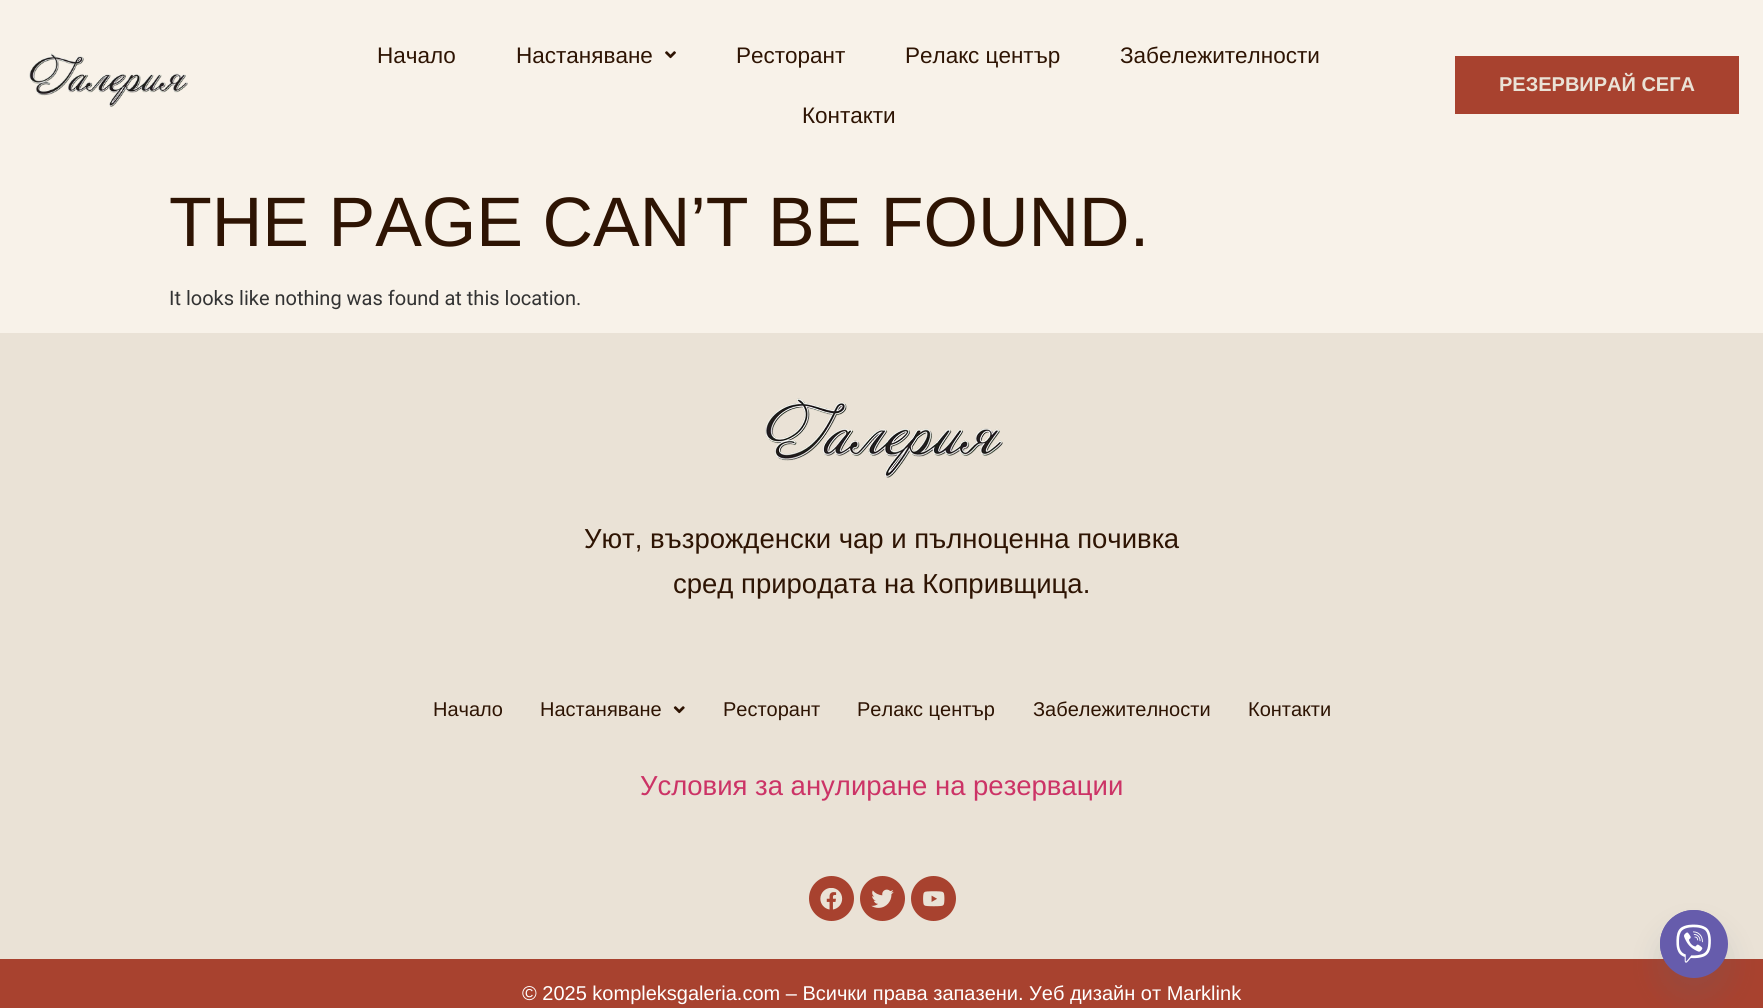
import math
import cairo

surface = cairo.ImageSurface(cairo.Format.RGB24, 1763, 1008)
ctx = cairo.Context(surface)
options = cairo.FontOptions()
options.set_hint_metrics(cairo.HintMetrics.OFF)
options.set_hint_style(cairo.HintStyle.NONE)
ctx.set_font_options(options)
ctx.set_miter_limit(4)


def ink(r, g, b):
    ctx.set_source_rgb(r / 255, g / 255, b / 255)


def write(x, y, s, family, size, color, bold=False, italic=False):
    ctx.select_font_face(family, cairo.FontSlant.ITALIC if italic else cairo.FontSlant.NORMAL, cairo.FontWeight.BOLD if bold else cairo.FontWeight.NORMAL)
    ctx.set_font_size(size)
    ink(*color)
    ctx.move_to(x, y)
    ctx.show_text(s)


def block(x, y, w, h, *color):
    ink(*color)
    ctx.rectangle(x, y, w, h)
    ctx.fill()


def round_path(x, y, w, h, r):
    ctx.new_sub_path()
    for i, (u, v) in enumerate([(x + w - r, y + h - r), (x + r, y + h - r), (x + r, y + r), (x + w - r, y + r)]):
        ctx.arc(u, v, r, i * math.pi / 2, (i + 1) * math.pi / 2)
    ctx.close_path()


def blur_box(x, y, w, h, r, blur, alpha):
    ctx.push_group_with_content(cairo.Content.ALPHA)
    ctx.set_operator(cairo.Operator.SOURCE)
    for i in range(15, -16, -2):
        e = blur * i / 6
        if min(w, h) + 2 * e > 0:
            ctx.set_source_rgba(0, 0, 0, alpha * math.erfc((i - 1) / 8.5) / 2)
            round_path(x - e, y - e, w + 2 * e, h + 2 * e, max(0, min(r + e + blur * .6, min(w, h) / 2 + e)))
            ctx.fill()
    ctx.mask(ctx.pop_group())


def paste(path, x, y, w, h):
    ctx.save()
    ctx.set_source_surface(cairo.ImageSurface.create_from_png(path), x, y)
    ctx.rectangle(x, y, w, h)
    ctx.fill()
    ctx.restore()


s1 = dict(family="Liberation Sans", size=22.5, color=(46, 20, 3))
s2 = dict(family="Liberation Sans", size=20, color=(234, 226, 214), bold=True)
s3 = dict(family="Liberation Sans", size=70, color=(46, 20, 3))
s4 = dict(family="Roboto", size=20, color=(51, 51, 51))
s5 = dict(family="Liberation Sans", size=27.5, color=(46, 20, 3))
s6 = dict(family="Liberation Sans", size=20, color=(46, 20, 3))
s7 = dict(family="Liberation Sans", size=27.5, color=(204, 51, 102))
s8 = dict(family="Liberation Sans", size=20, color=(255, 255, 255))

ink(248, 242, 233)
ctx.paint()
paste("pic1.png", 29, 53, 159, 54)
write(377, 63, "Начало", **s1)
write(516, 63, "Настаняване", **s1)
paste("pic2.png", 665, 51, 11, 8)
write(736, 63, "Ресторант", **s1)
write(905, 63, "Релакс център", **s1)
write(1120, 63, "Забележителности", **s1)
write(802, 123, "Контакти", **s1)
block(1455, 56, 284, 58, 168, 66, 47)
write(1499, 91, "РЕЗЕРВИРАЙ СЕГА", **s2)
write(169, 246, "THE PAGE CAN’T BE FOUND.", **s3)
write(169, 305, "It looks like nothing was found at this location.", **s4)
block(0, 333, 1763, 626, 234, 226, 214)
paste("pic3.png", 765, 398, 238, 80)
write(584, 548, "Уют, възрожденски чар и пълноценна почивка", **s5)
write(673, 593, "сред природата на Копривщица.", **s5)
write(433, 716, "Начало", **s6)
write(540, 716, "Настаняване", **s6)
paste("pic4.png", 673, 706, 12, 8)
write(723, 716, "Ресторант", **s6)
write(857, 716, "Релакс център", **s6)
write(1033, 716, "Забележителности", **s6)
write(1248, 716, "Контакти", **s6)
write(640, 795, "Условия за анулиране на резервации", **s7)
ink(168, 66, 47)
ctx.new_path()
ctx.arc(831.5, 898.5, 22.5, 0, 2 * math.pi)
ctx.fill()
paste("pic5.png", 820, 888, 23, 22)
ctx.arc(882.5, 898.5, 22.5, 0, 2 * math.pi)
ctx.fill()
paste("pic6.png", 871, 889, 23, 19)
ctx.arc(933.5, 898.5, 22.5, 0, 2 * math.pi)
ctx.fill()
paste("pic7.png", 923, 891, 22, 16)
block(0, 959, 1763, 49, 168, 66, 47)
write(522, 1000, "© 2025 kompleksgaleria.com – Всички права запазени. Уеб дизайн от Marklink", **s8)
ink(73, 104, 126)
blur_box(1660, 930, 68, 68, 34, 15, 0.16)
ink(102, 92, 172)
ctx.arc(1694, 944, 34, 0, 2 * math.pi)
ctx.fill()
paste("pic8.png", 1660, 910, 58, 55)
surface.write_to_png("screenshot.png")
